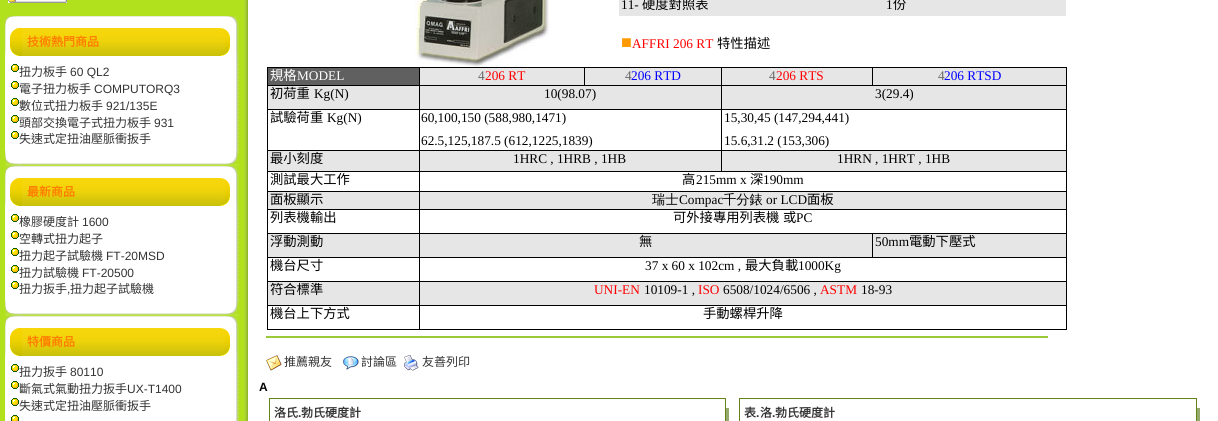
import math
import cairo

surface = cairo.ImageSurface(cairo.Format.RGB24, 1218, 421)
ctx = cairo.Context(surface)
options = cairo.FontOptions()
options.set_hint_metrics(cairo.HintMetrics.OFF)
options.set_hint_style(cairo.HintStyle.NONE)
ctx.set_font_options(options)
ctx.set_miter_limit(4)


def ink(r, g, b):
    ctx.set_source_rgb(r / 255, g / 255, b / 255)


def write(x, y, s, family, size, color, bold=False, italic=False):
    ctx.select_font_face(family, cairo.FontSlant.ITALIC if italic else cairo.FontSlant.NORMAL, cairo.FontWeight.BOLD if bold else cairo.FontWeight.NORMAL)
    ctx.set_font_size(size)
    ink(*color)
    ctx.move_to(x, y)
    ctx.show_text(s)


def block(x, y, w, h, *color):
    ink(*color)
    ctx.rectangle(x, y, w, h)
    ctx.fill()


def paste(path, x, y, w, h):
    ctx.save()
    ctx.set_source_surface(cairo.ImageSurface.create_from_png(path), x, y)
    ctx.rectangle(x, y, w, h)
    ctx.fill()
    ctx.restore()


s1 = dict(family="Noto Sans CJK TC", size=12, color=(255, 123, 0), bold=True)
s2 = dict(family="Noto Sans CJK TC", size=12, color=(51, 51, 51))
s3 = dict(family="Liberation Sans", size=12, color=(51, 51, 51))
s4 = dict(family="Liberation Serif", size=13.3, color=(0, 0, 0))
s5 = dict(family="Noto Sans CJK TC", size=13.3, color=(0, 0, 0))
s6 = dict(family="Liberation Serif", size=18, color=(255, 153, 0))
s7 = dict(family="Liberation Serif", size=13.3, color=(255, 0, 0))
s8 = dict(family="Noto Sans CJK TC", size=13.3, color=(255, 255, 255))
s9 = dict(family="Liberation Serif", size=13.3, color=(255, 255, 255))
s10 = dict(family="Liberation Serif", size=13.3, color=(102, 102, 102))
s11 = dict(family="Liberation Serif", size=13.3, color=(0, 0, 255))
s12 = dict(family="WenQuanYi Zen Hei Medium", size=13.3, color=(0, 0, 0))
s13 = dict(family="Liberation Sans", size=12, color=(0, 0, 0), bold=True)
s14 = dict(family="Noto Sans CJK TC", size=12, color=(51, 51, 51), bold=True)
s15 = dict(family="Liberation Sans", size=12, color=(51, 51, 51), bold=True)

ink(177, 225, 28)
ctx.paint()
paste("pic1.png", 8, 0, 59, 3)
paste("pic2.png", 22, 16, 198, 45)
paste("pic3.png", 5, 16, 17, 45)
paste("pic4.png", 220, 16, 19, 45)
write(27, 46, "技術熱門商品", **s1)
block(6, 61, 230, 90, 255, 255, 255)
block(5, 61, 1, 90, 251, 252, 249)
paste("pic5.png", 236, 61, 3, 90)
paste("pic6.png", 11, 64, 8, 8)
write(19, 76, "扭力板手", **s2)
write(70, 76, "60 QL2", **s3)
paste("pic6.png", 11, 81, 8, 8)
write(19, 93, "電子扭力板手", **s2)
write(94, 93, "COMPUTORQ3", **s3)
paste("pic6.png", 11, 98, 8, 8)
write(19, 110, "數位式扭力板手", **s2)
write(106, 110, "921/135E", **s3)
paste("pic6.png", 11, 115, 8, 8)
write(19, 127, "頭部交換電子式扭力板手", **s2)
write(154, 127, "931", **s3)
paste("pic6.png", 11, 131, 8, 8)
write(19, 143, "失速式定扭油壓脈衝扳手", **s2)
paste("pic7.png", 23, 151, 202, 15)
paste("pic8.png", 5, 151, 18, 15)
paste("pic9.png", 225, 151, 14, 15)
paste("pic2.png", 22, 166, 198, 45)
paste("pic3.png", 5, 166, 17, 45)
paste("pic4.png", 220, 166, 19, 45)
write(27, 196, "最新商品", **s1)
block(6, 211, 230, 90, 255, 255, 255)
block(5, 211, 1, 90, 251, 252, 249)
paste("pic5.png", 236, 211, 3, 90)
paste("pic6.png", 11, 214, 8, 8)
write(19, 226, "橡膠硬度計", **s2)
write(82, 226, "1600", **s3)
paste("pic6.png", 11, 231, 8, 8)
write(19, 243, "空轉式扭力起子", **s2)
paste("pic6.png", 11, 248, 8, 8)
write(19, 260, "扭力起子試驗機", **s2)
write(106, 260, "FT-20MSD", **s3)
paste("pic6.png", 11, 265, 8, 8)
write(19, 277, "扭力試驗機", **s2)
write(82, 277, "FT-20500", **s3)
paste("pic6.png", 11, 281, 8, 8)
write(19, 293, "扭力扳手", **s2)
write(67, 293, ",", **s3)
write(70, 293, "扭力起子試驗機", **s2)
paste("pic7.png", 23, 301, 202, 15)
paste("pic8.png", 5, 301, 18, 15)
paste("pic9.png", 225, 301, 14, 15)
paste("pic2.png", 22, 316, 198, 45)
paste("pic3.png", 5, 316, 17, 45)
paste("pic4.png", 220, 316, 19, 45)
write(27, 346, "特價商品", **s1)
block(6, 361, 230, 60, 255, 255, 255)
block(5, 361, 1, 60, 251, 252, 249)
paste("pic10.png", 236, 361, 3, 60)
paste("pic6.png", 11, 364, 8, 8)
write(19, 376, "扭力扳手", **s2)
write(70, 376, "80110", **s3)
paste("pic6.png", 11, 381, 8, 8)
write(19, 393, "斷氣式氣動扭力扳手", **s2)
write(127, 393, "UX-T1400", **s3)
paste("pic6.png", 11, 398, 8, 8)
write(19, 410, "失速式定扭油壓脈衝扳手", **s2)
paste("pic11.png", 11, 415, 8, 6)
block(248, 0, 970, 421, 255, 255, 255)
paste("pic12.png", 244, 0, 4, 421)
paste("pic13.png", 415, 0, 136, 67)
block(619, 0, 447, 16, 230, 230, 230)
write(621, 9, "11-", **s4)
write(642, 9, "硬度對照表", **s5)
write(886, 9, "1", **s4)
write(893, 9, "份", **s5)
write(621, 48, "■", **s6)
write(632, 48, "AFFRI 206 RT", **s7)
write(717, 48, "特性描述", **s5)
block(268, 68, 151, 17, 96, 96, 96)
block(267, 67, 800, 1, 0, 0, 0)
block(267, 150, 800, 1, 0, 0, 0)
block(1066, 171, 1, 159, 0, 0, 0)
block(1066, 85, 1, 87, 0, 0, 0)
block(1066, 67, 1, 19, 0, 0, 0)
block(872, 85, 195, 1, 0, 0, 0)
block(872, 67, 1, 19, 0, 0, 0)
block(721, 171, 346, 1, 0, 0, 0)
block(721, 109, 1, 63, 0, 0, 0)
block(721, 109, 346, 1, 0, 0, 0)
block(721, 85, 1, 25, 0, 0, 0)
block(721, 85, 152, 1, 0, 0, 0)
block(721, 67, 1, 19, 0, 0, 0)
block(584, 85, 138, 1, 0, 0, 0)
block(584, 67, 1, 19, 0, 0, 0)
block(872, 257, 195, 1, 0, 0, 0)
block(872, 233, 1, 25, 0, 0, 0)
block(419, 329, 648, 1, 0, 0, 0)
block(419, 305, 1, 25, 0, 0, 0)
block(419, 305, 648, 1, 0, 0, 0)
block(419, 281, 1, 25, 0, 0, 0)
block(419, 281, 648, 1, 0, 0, 0)
block(419, 257, 1, 25, 0, 0, 0)
block(419, 257, 454, 1, 0, 0, 0)
block(419, 233, 1, 25, 0, 0, 0)
block(419, 233, 648, 1, 0, 0, 0)
block(419, 209, 1, 25, 0, 0, 0)
block(419, 209, 648, 1, 0, 0, 0)
block(419, 191, 1, 19, 0, 0, 0)
block(419, 191, 648, 1, 0, 0, 0)
block(419, 171, 1, 21, 0, 0, 0)
block(419, 171, 303, 1, 0, 0, 0)
block(419, 109, 1, 63, 0, 0, 0)
block(419, 109, 303, 1, 0, 0, 0)
block(419, 85, 1, 25, 0, 0, 0)
block(419, 85, 166, 1, 0, 0, 0)
block(419, 67, 1, 19, 0, 0, 0)
block(267, 329, 153, 1, 0, 0, 0)
block(267, 305, 1, 25, 0, 0, 0)
block(267, 305, 153, 1, 0, 0, 0)
block(267, 281, 1, 25, 0, 0, 0)
block(267, 281, 153, 1, 0, 0, 0)
block(267, 257, 1, 25, 0, 0, 0)
block(267, 257, 153, 1, 0, 0, 0)
block(267, 233, 1, 25, 0, 0, 0)
block(267, 233, 153, 1, 0, 0, 0)
block(267, 209, 1, 25, 0, 0, 0)
block(267, 209, 153, 1, 0, 0, 0)
block(267, 191, 1, 19, 0, 0, 0)
block(267, 191, 153, 1, 0, 0, 0)
block(267, 171, 1, 21, 0, 0, 0)
block(267, 171, 153, 1, 0, 0, 0)
block(267, 109, 1, 63, 0, 0, 0)
block(267, 109, 153, 1, 0, 0, 0)
block(267, 85, 1, 25, 0, 0, 0)
block(267, 85, 153, 1, 0, 0, 0)
block(267, 67, 1, 19, 0, 0, 0)
write(270, 80, "規格", **s8)
write(297, 80, "MODEL", **s9)
block(420, 68, 164, 17, 230, 230, 230)
write(478, 80, "4", **s10)
write(485, 80, "206 RT", **s7)
block(585, 68, 136, 17, 230, 230, 230)
write(625, 80, "4", **s10)
write(631, 80, "206 RTD", **s11)
block(722, 68, 150, 17, 230, 230, 230)
write(769, 80, "4", **s10)
write(776, 80, "206 RTS", **s7)
block(873, 68, 193, 17, 230, 230, 230)
write(938, 80, "4", **s10)
write(944, 80, "206 RTSD", **s11)
block(268, 86, 151, 23, 230, 230, 230)
write(270, 98, "初荷重", **s5)
write(314, 98, "Kg(N)", **s4)
block(420, 86, 301, 23, 230, 230, 230)
write(544, 98, "10(98.07)", **s4)
block(722, 86, 344, 23, 230, 230, 230)
write(875, 98, "3(29.4)", **s4)
write(270, 122, "試驗荷重", **s5)
write(327, 122, "Kg(N)", **s4)
write(421, 122, "60,100,150 (588,980,1471)", **s4)
write(724, 122, "15,30,45 (147,294,441)", **s4)
write(421, 145, "62.5,125,187.5 (612,1225,1839)", **s4)
write(724, 145, "15.6,31.2 (153,306)", **s4)
block(268, 151, 151, 20, 230, 230, 230)
write(270, 163, "最小刻度", **s5)
block(420, 151, 301, 20, 230, 230, 230)
write(513, 163, "1HRC , 1HRB , 1HB", **s4)
block(722, 151, 344, 20, 230, 230, 230)
write(837, 163, "1HRN , 1HRT , 1HB", **s4)
write(270, 184, "測試最大工作", **s5)
write(682, 184, "高", **s5)
write(696, 184, "215mm x", **s4)
write(750, 184, "深", **s5)
write(763, 184, "190mm", **s4)
block(268, 192, 151, 17, 230, 230, 230)
write(270, 204, "面板顯示", **s5)
block(420, 192, 646, 17, 230, 230, 230)
write(652, 204, "瑞士", **s12)
write(679, 204, "Compac", **s4)
write(723, 204, "千分錶", **s12)
write(766, 204, "or LCD", **s4)
write(807, 204, "面板", **s5)
write(270, 222, "列表機輸出", **s5)
write(673, 222, "可外接專用列表機", **s5)
write(783, 222, "或", **s5)
write(796, 222, "PC", **s4)
block(268, 234, 151, 23, 230, 230, 230)
write(270, 246, "浮動測動", **s5)
block(420, 234, 452, 23, 230, 230, 230)
write(639, 246, "無", **s5)
block(873, 234, 193, 23, 230, 230, 230)
write(875, 246, "50mm", **s4)
write(909, 246, "電動下壓式", **s5)
write(270, 270, "機台尺寸", **s5)
write(645, 270, "37 x 60 x 102cm ,", **s4)
write(745, 270, "最大負載", **s5)
write(798, 270, "1000Kg", **s4)
block(268, 282, 151, 23, 230, 230, 230)
write(270, 294, "符合標準", **s5)
block(420, 282, 646, 23, 230, 230, 230)
write(594, 294, "UNI-EN", **s7)
write(644, 294, "10109-1 ,", **s4)
write(698, 294, "ISO", **s7)
write(723, 294, "6508/1024/6506 ,", **s4)
write(820, 294, "ASTM", **s7)
write(861, 294, "18-93", **s4)
write(270, 318, "機台上下方式", **s5)
write(703, 318, "手動螺桿升降", **s5)
block(266, 336, 782, 2, 156, 201, 55)
paste("pic14.png", 266, 355, 16, 16)
write(284, 366, "推薦親友", **s2)
paste("pic15.png", 343, 356, 16, 14)
write(361, 366, "討論區", **s2)
paste("pic16.png", 404, 355, 15, 16)
write(422, 366, "友善列印", **s2)
write(259, 391, "A", **s13)
ctx.rectangle(269.5, 398.5, 456, 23)
ink(99, 133, 24)
ctx.set_line_width(1)
ctx.stroke()
write(274, 417, "洛氏", **s14)
write(298, 417, ".", **s15)
write(301, 417, "勃氏硬度計", **s14)
block(726, 408, 3, 13, 151, 170, 109)
ctx.rectangle(739.5, 398.5, 457, 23)
ink(99, 133, 24)
ctx.stroke()
write(744, 417, "表", **s14)
write(756, 417, ".", **s15)
write(760, 417, "洛", **s14)
write(772, 417, ".", **s15)
write(775, 417, "勃氏硬度計", **s14)
block(1197, 408, 3, 13, 151, 170, 109)
surface.write_to_png("screenshot.png")
